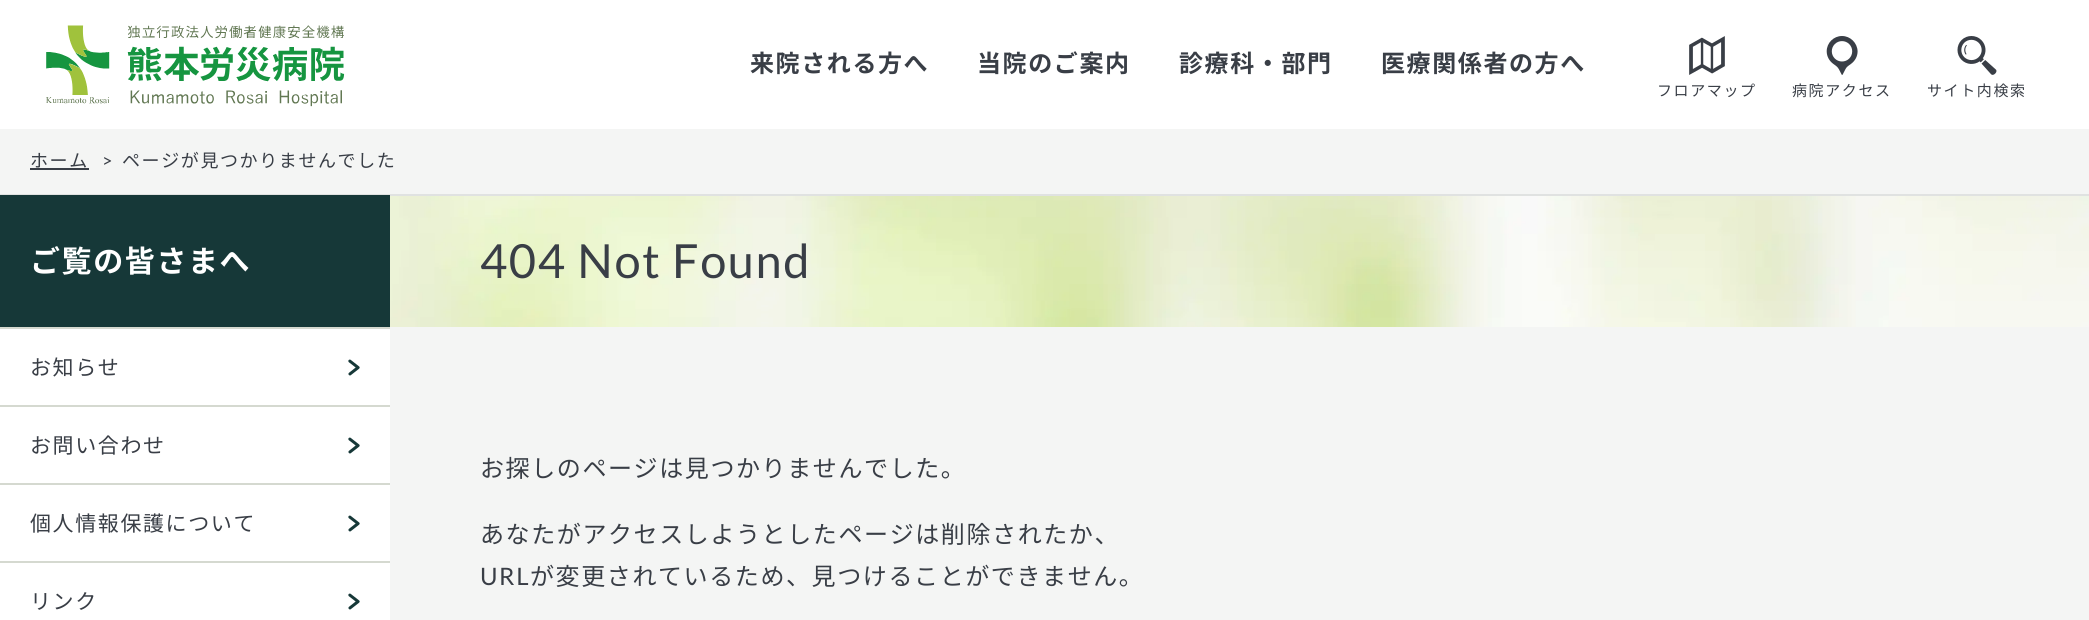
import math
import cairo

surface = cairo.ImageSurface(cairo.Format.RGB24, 2089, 620)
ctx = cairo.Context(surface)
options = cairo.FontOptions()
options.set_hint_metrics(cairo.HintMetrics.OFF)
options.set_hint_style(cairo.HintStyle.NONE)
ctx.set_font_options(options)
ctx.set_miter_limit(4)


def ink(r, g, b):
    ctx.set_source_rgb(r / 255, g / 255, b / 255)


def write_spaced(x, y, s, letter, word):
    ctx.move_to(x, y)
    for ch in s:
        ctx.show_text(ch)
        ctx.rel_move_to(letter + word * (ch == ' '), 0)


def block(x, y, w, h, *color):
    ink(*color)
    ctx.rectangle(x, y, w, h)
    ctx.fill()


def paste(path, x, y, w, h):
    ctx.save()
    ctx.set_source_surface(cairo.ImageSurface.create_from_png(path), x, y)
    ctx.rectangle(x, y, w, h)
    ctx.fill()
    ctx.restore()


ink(244, 245, 244)
ctx.paint()
block(0, 0, 2089, 129, 255, 255, 255)
paste("pic1.png", 46, 25, 299, 82)
ctx.select_font_face("Noto Sans JP", cairo.FontSlant.NORMAL, cairo.FontWeight.BOLD)
ctx.set_font_size(24)
ink(57, 62, 70)
write_spaced(750, 72, "来院される方へ", 1.6, 0)
write_spaced(977, 72, "当院のご案内", 1.6, 0)
write_spaced(1179, 72, "診療科・部門", 1.6, 0)
write_spaced(1381, 72, "医療関係者の方へ", 1.6, 0)
paste("pic2.png", 1689, 36, 36, 39)
ctx.select_font_face("Noto Sans JP")
ctx.set_font_size(15)
write_spaced(1657, 96, "フロアマップ", 1.6, 0)
paste("pic3.png", 1826, 36, 32, 39)
write_spaced(1792, 96, "病院アクセス", 1.6, 0)
paste("pic4.png", 1957, 36, 40, 39)
write_spaced(1927, 96, "サイト内検索", 1.6, 0)
block(0, 194, 2089, 2, 224, 226, 225)
ctx.set_font_size(18)
ink(57, 62, 70)
write_spaced(30, 167, "ホーム", 1.6, 0)
block(30, 168, 59, 2, 57, 62, 70)
ctx.select_font_face("Lato")
write_spaced(102, 167, ">", 1.6, 0)
ctx.select_font_face("Noto Sans JP")
write_spaced(122, 167, "ページが見つかりませんでした", 1.6, 0)
paste("pic5.png", 390, 196, 1699, 131)
block(0, 327, 390, 236, 213, 217, 208)
block(0, 195, 390, 132, 22, 56, 56)
ctx.select_font_face("Noto Sans JP", cairo.FontSlant.NORMAL, cairo.FontWeight.BOLD)
ctx.set_font_size(30)
ink(255, 255, 255)
write_spaced(30, 272, "ご覧の皆さまへ", 1.6, 0)
block(0, 329, 390, 76, 255, 255, 255)
ctx.select_font_face("Noto Sans JP")
ctx.set_font_size(21)
ink(57, 62, 70)
write_spaced(30, 375, "お知らせ", 1.6, 0)
paste("pic6.png", 348, 359, 12, 17)
block(0, 407, 390, 76, 255, 255, 255)
ink(57, 62, 70)
write_spaced(30, 453, "お問い合わせ", 1.6, 0)
paste("pic6.png", 348, 437, 12, 17)
block(0, 485, 390, 76, 255, 255, 255)
ink(57, 62, 70)
write_spaced(30, 531, "個人情報保護について", 1.6, 0)
paste("pic6.png", 348, 515, 12, 17)
block(0, 563, 390, 57, 255, 255, 255)
ink(57, 62, 70)
write_spaced(30, 609, "リンク", 1.6, 0)
paste("pic6.png", 348, 593, 12, 17)
ctx.select_font_face("Lato")
ctx.set_font_size(47)
write_spaced(480, 278, "404 Not Found", 1.6, 0)
ctx.select_font_face("Noto Sans JP")
ctx.set_font_size(24)
write_spaced(480, 477, "お探しのページは見つかりませんでした。", 1.6, 0)
write_spaced(480, 543, "あなたがアクセスしようとしたページは削除されたか、", 1.6, 0)
ctx.select_font_face("Lato")
write_spaced(480, 585, "URL", 1.6, 0)
ctx.select_font_face("Noto Sans JP")
write_spaced(530, 585, "が変更されているため、見つけることができません。", 1.6, 0)
surface.write_to_png("screenshot.png")
